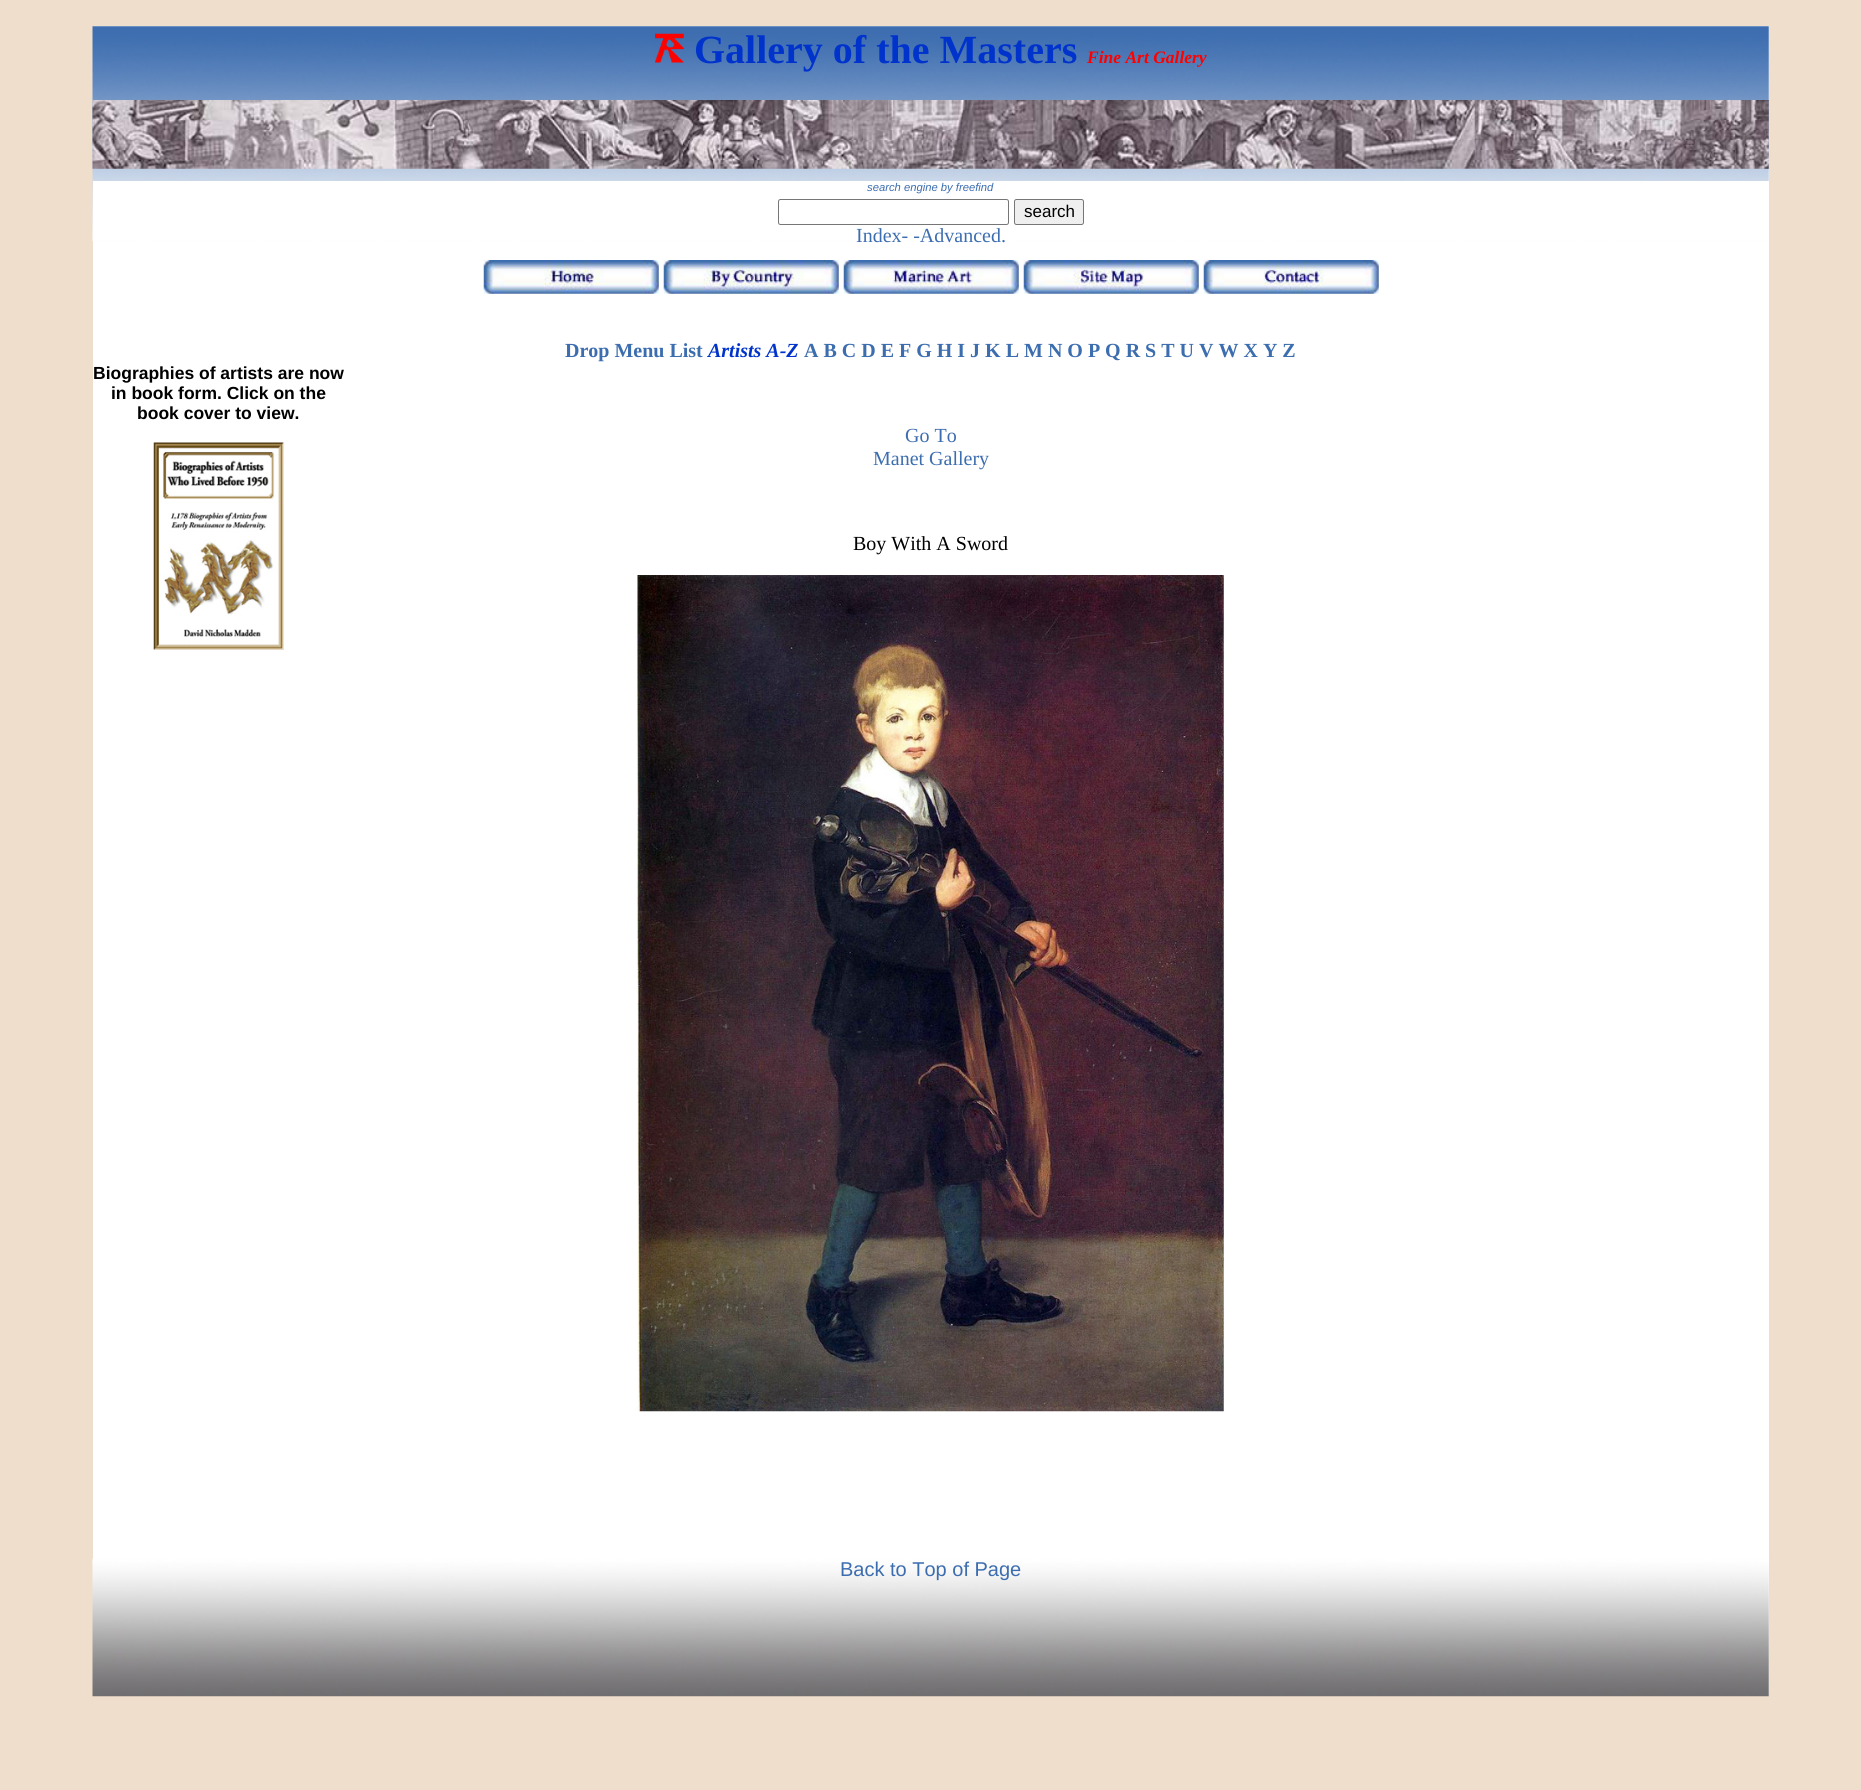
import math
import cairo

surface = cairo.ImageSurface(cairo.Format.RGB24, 1861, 1790)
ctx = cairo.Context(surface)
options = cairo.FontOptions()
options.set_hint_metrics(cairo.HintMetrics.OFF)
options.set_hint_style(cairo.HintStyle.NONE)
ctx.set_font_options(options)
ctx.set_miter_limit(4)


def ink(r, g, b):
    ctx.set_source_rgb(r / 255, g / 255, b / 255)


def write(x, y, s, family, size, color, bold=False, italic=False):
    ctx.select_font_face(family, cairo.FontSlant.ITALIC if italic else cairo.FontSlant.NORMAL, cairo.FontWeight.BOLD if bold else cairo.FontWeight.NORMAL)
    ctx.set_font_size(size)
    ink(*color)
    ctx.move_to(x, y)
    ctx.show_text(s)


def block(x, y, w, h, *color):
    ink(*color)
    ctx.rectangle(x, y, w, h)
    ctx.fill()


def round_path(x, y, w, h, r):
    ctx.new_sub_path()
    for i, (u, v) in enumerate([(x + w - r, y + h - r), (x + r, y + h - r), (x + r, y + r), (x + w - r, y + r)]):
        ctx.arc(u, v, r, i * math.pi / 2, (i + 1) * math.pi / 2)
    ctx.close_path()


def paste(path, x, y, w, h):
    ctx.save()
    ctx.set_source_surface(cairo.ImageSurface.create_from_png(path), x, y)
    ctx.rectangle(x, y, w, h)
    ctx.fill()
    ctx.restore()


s1 = dict(family="Liberation Serif", size=40, color=(0, 51, 204), bold=True)
s2 = dict(family="Liberation Serif", size=17.5, color=(255, 0, 0), bold=True, italic=True)
s3 = dict(family="Liberation Sans", size=11.25, color=(60, 109, 175), italic=True)
s4 = dict(family="Liberation Sans", size=17, color=(0, 0, 0))
s5 = dict(family="Liberation Serif", size=20, color=(60, 109, 175))
s6 = dict(family="Liberation Serif", size=20, color=(60, 109, 175), bold=True)
s7 = dict(family="Liberation Serif", size=20, color=(0, 51, 204), bold=True, italic=True)
s8 = dict(family="Liberation Sans", size=17.5, color=(0, 0, 0), bold=True)
s9 = dict(family="Liberation Serif", size=20, color=(0, 0, 0))
s10 = dict(family="Liberation Sans", size=20, color=(60, 109, 175))

ink(240, 222, 204)
ctx.paint()
block(93, 26, 1676, 1670, 255, 255, 255)
paste("pic1.png", 92, 26, 1677, 216)
paste("pic2.png", 655, 33, 29, 30)
write(694, 63, "Gallery of the Masters", **s1)
write(1087, 63, "Fine Art Gallery", **s2)
paste("pic3.png", 92, 100, 1677, 69)
block(93, 181, 1676, 60, 255, 255, 255)
write(867, 191, "search engine by freefind", **s3)
round_path(778.5, 199.5, 230, 25, 2)
ink(118, 118, 118)
ctx.set_line_width(1)
ctx.stroke()
ink(239, 239, 239)
round_path(1014.5, 199.5, 69, 25, 2)
ctx.fill_preserve()
ink(118, 118, 118)
ctx.stroke()
write(1024, 217, "search", **s4)
write(856, 242, "Index- -Advanced.", **s5)
paste("pic4.png", 483, 260, 176, 34)
paste("pic5.png", 663, 260, 176, 34)
paste("pic6.png", 843, 260, 176, 34)
paste("pic7.png", 1023, 260, 176, 34)
paste("pic8.png", 1203, 260, 176, 34)
write(565, 357, "Drop Menu List", **s6)
write(708, 357, "Artists A-Z", **s7)
write(804, 357, "A B C D E F G H I J K L M N O P Q R S T U V W X Y Z", **s6)
write(93, 379, "Biographies of artists are now", **s8)
write(111, 399, "in book form. Click on the", **s8)
write(137, 419, "book cover to view.", **s8)
paste("pic9.png", 153, 442, 131, 208)
block(344, 369, 1, 2, 255, 255, 255)
write(905, 442, "Go To", **s5)
write(873, 465, "Manet Gallery", **s5)
write(853, 550, "Boy With A Sword", **s9)
paste("pic10.png", 637, 575, 587, 837)
paste("pic11.png", 92, 1558, 1677, 139)
write(840, 1576, "Back to Top of Page", **s10)
surface.write_to_png("screenshot.png")
